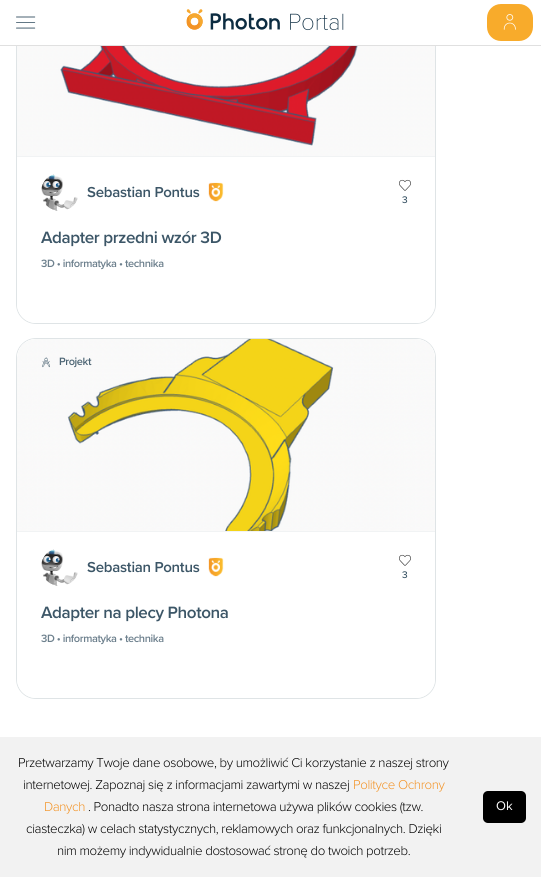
import math
import cairo

surface = cairo.ImageSurface(cairo.Format.RGB24, 541, 877)
ctx = cairo.Context(surface)
options = cairo.FontOptions()
options.set_hint_metrics(cairo.HintMetrics.OFF)
options.set_hint_style(cairo.HintStyle.NONE)
ctx.set_font_options(options)
ctx.set_miter_limit(4)


def ink(r, g, b):
    ctx.set_source_rgb(r / 255, g / 255, b / 255)


def write(x, y, s, family, size, color, bold=False, italic=False):
    ctx.select_font_face(family, cairo.FontSlant.ITALIC if italic else cairo.FontSlant.NORMAL, cairo.FontWeight.BOLD if bold else cairo.FontWeight.NORMAL)
    ctx.set_font_size(size)
    ink(*color)
    ctx.move_to(x, y)
    ctx.show_text(s)


def write_spaced(x, y, s, letter, word):
    ctx.move_to(x, y)
    for ch in s:
        ctx.show_text(ch)
        ctx.rel_move_to(letter + word * (ch == ' '), 0)


def block(x, y, w, h, *color):
    ink(*color)
    ctx.rectangle(x, y, w, h)
    ctx.fill()


def round_path(x, y, w, h, r):
    ctx.new_sub_path()
    for i, (u, v) in enumerate([(x + w - r, y + h - r), (x + r, y + h - r), (x + r, y + r), (x + w - r, y + r)]):
        ctx.arc(u, v, r, i * math.pi / 2, (i + 1) * math.pi / 2)
    ctx.close_path()


def paste(path, x, y, w, h):
    ctx.save()
    ctx.set_source_surface(cairo.ImageSurface.create_from_png(path), x, y)
    ctx.rectangle(x, y, w, h)
    ctx.fill()
    ctx.restore()


s1 = dict(family="Proxima Nova Medium", size=10, color=(60, 86, 103))
s2 = dict(family="Proxima Nova", size=13, color=(255, 255, 255))

ink(255, 255, 255)
ctx.paint()
round_path(16.5, -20.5, 419, 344, 19.5)
ink(223, 228, 230)
ctx.set_line_width(1)
ctx.stroke()
block(16, 0, 420, 45, 255, 255, 255)
block(0, 45, 541, 1, 224, 224, 224)
paste("pic1.png", 16, 16, 20, 13)
paste("pic2.png", 186, 9, 158, 22)
ink(248, 171, 43)
round_path(487, 4, 46, 37, 14)
ctx.fill()
paste("pic3.png", 503, 14, 13, 16)
paste("pic4.png", 17, 46, 418, 110)
ctx.save()
round_path(17, -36, 418, 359, 19)
ctx.clip()
ink(255, 255, 255)
ctx.new_path()
ctx.move_to(17, 156)
ctx.line_to(435, 156)
ctx.line_to(435, 305)
ctx.curve_to(435, 315.5, 426.5, 324, 416, 324)
ctx.line_to(36, 324)
ctx.curve_to(25.5, 324, 17, 315.5, 17, 305)
ctx.close_path()
ctx.fill()
ctx.restore()
block(17, 156, 418, 1, 241, 243, 244)
paste("pic5.png", 41, 174, 37, 37)
ctx.select_font_face("Proxima Nova SemiBold")
ctx.set_font_size(15)
ink(60, 86, 103)
write_spaced(87, 197, "Sebastian Pontus", -0.25, 0)
paste("pic6.png", 208, 182, 16, 20)
paste("pic7.png", 399, 179, 12, 12)
write(402, 203, "3", **s1)
ctx.select_font_face("Proxima Nova SemiBold")
ctx.set_font_size(17)
write_spaced(41, 243, "Adapter przedni wzór 3D", -0.4, 0)
ctx.set_font_size(11)
ink(109, 128, 141)
write_spaced(41, 267, "3D • informatyka • technika", -0.4, 0)
round_path(16.5, 338.5, 419, 360, 19.5)
ink(223, 228, 230)
ctx.stroke()
ink(255, 255, 255)
ctx.new_path()
ctx.move_to(36, 339)
ctx.line_to(416, 339)
ctx.curve_to(426.5, 339, 435, 347.5, 435, 358)
ctx.line_to(435, 531)
ctx.line_to(17, 531)
ctx.line_to(17, 358)
ctx.curve_to(17, 347.5, 25.5, 339, 36, 339)
ctx.close_path()
ctx.fill()
paste("pic8.png", 17, 339, 418, 192)
paste("pic9.png", 42, 357, 8, 11)
ink(78, 102, 117)
write_spaced(59, 365, "Projekt", -0.4, 0)
ctx.save()
round_path(17, 339, 418, 359, 19)
ctx.clip()
ink(255, 255, 255)
ctx.new_path()
ctx.move_to(17, 531)
ctx.line_to(435, 531)
ctx.line_to(435, 680)
ctx.curve_to(435, 690.5, 426.5, 699, 416, 699)
ctx.line_to(36, 699)
ctx.curve_to(25.5, 699, 17, 690.5, 17, 680)
ctx.close_path()
ctx.fill()
ctx.restore()
block(17, 531, 418, 1, 241, 243, 244)
paste("pic5.png", 41, 549, 37, 37)
ctx.set_font_size(15)
ink(60, 86, 103)
write_spaced(87, 572, "Sebastian Pontus", -0.25, 0)
paste("pic6.png", 208, 557, 16, 20)
paste("pic7.png", 399, 554, 12, 12)
write(402, 578, "3", **s1)
ctx.select_font_face("Proxima Nova SemiBold")
ctx.set_font_size(17)
write_spaced(41, 618, "Adapter na plecy Photona", -0.4, 0)
ctx.set_font_size(11)
ink(109, 128, 141)
write_spaced(41, 642, "3D • informatyka • technika", -0.4, 0)
block(0, 737, 541, 140, 242, 242, 242)
ctx.select_font_face("Proxima Nova Light")
ctx.set_font_size(13.3)
ink(0, 0, 0)
write_spaced(18, 767, "Przetwarzamy Twoje dane osobowe, by umożliwić Ci korzystanie z naszej strony", -0.4, 0)
write_spaced(23, 789, "internetowej. Zapoznaj się z informacjami zawartymi w naszej", -0.4, 0)
ink(243, 147, 37)
write_spaced(353, 789, "Polityce Ochrony", -0.4, 0)
write_spaced(44, 811, "Danych", -0.4, 0)
ink(0, 0, 0)
write_spaced(88, 811, ". Ponadto nasza strona internetowa używa plików cookies (tzw.", -0.4, 0)
write_spaced(26, 833, "ciasteczka) w celach statystycznych, reklamowych oraz funkcjonalnych. Dzięki", -0.4, 0)
write_spaced(57, 855, "nim możemy indywidualnie dostosować stronę do twoich potrzeb.", -0.4, 0)
round_path(483, 791, 43, 32, 5)
ctx.fill()
write(496, 810, "Ok", **s2)
surface.write_to_png("screenshot.png")
